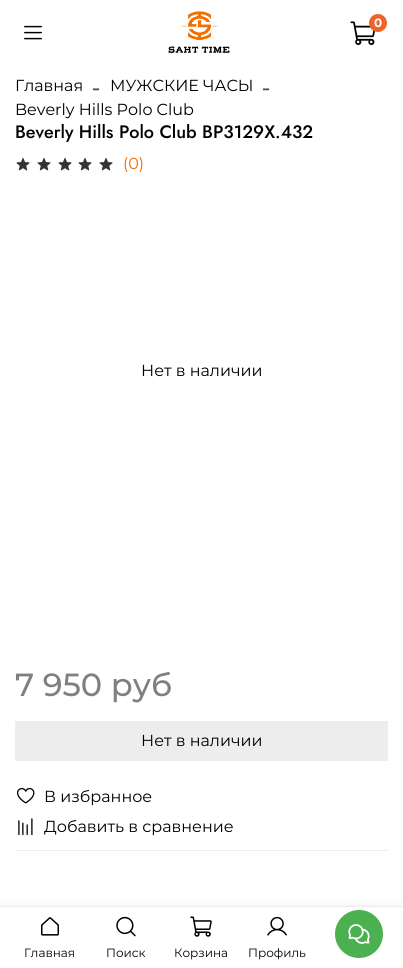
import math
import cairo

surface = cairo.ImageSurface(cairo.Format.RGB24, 403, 968)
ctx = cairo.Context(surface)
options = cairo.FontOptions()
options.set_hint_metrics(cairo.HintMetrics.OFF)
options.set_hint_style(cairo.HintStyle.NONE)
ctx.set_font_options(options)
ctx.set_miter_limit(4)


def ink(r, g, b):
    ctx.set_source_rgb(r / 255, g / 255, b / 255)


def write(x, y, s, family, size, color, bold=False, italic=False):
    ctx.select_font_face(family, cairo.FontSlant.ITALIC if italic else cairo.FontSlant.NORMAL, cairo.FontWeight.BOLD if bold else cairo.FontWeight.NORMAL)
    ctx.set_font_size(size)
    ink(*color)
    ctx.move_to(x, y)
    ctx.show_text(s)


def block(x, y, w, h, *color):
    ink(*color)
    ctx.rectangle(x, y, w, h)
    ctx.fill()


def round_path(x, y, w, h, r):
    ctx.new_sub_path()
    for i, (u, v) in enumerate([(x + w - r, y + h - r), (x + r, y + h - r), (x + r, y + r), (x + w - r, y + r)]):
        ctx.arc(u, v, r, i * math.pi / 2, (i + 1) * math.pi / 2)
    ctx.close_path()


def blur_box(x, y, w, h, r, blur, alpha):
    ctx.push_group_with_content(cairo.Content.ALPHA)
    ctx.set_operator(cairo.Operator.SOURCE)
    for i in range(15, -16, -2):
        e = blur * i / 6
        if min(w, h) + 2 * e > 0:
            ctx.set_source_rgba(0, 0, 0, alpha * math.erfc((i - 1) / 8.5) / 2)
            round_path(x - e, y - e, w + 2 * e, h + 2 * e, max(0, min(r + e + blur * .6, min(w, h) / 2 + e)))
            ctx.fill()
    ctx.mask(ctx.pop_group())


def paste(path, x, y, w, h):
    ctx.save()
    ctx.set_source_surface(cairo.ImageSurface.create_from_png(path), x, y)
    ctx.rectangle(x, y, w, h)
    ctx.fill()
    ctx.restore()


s1 = dict(family="Montserrat", size=12, color=(255, 255, 255), bold=True)
s2 = dict(family="Montserrat", size=16, color=(0, 0, 0))
s3 = dict(family="Liberation Serif", size=24, color=(77, 77, 77))
s4 = dict(family="Jost Medium", size=18, color=(0, 0, 0))
s5 = dict(family="Montserrat", size=16, color=(244, 108, 0))
s6 = dict(family="Montserrat Medium", size=32, color=(128, 128, 128))
s7 = dict(family="Montserrat", size=12, color=(0, 0, 0))

ink(255, 255, 255)
ctx.paint()
paste("pic1.png", 168, 11, 62, 43)
paste("pic2.png", 350, 21, 25, 24)
ink(238, 99, 44)
ctx.arc(378, 23, 9, 0, 2 * math.pi)
ctx.fill()
write(374, 27, "0", **s1)
paste("pic3.png", 24, 25, 18, 15)
write(15, 91, "Главная", **s2)
write(92, 95, "-", **s3)
write(110, 91, "МУЖСКИЕ ЧАСЫ", **s2)
write(262, 95, "-", **s3)
write(15, 115, "Beverly Hills Polo Club", **s2)
write(15, 138, "Beverly Hills Polo Club BP3129X.432", **s4)
paste("pic4.png", 16, 158, 14, 13)
paste("pic4.png", 37, 158, 14, 13)
paste("pic4.png", 58, 158, 14, 13)
paste("pic4.png", 78, 158, 14, 13)
paste("pic4.png", 99, 158, 14, 13)
write(123, 169, "(0)", **s5)
write(141, 376, "Нет в наличии", **s2)
write(15, 696, "7 950 руб", **s6)
block(15, 721, 373, 40, 237, 237, 237)
write(141, 746, "Нет в наличии", **s2)
paste("pic5.png", 17, 787, 18, 17)
write(44, 802, "В избранное", **s2)
paste("pic6.png", 18, 818, 15, 18)
write(44, 832, "Добавить в сравнение", **s2)
block(15, 850, 373, 1, 237, 237, 237)
ink(0, 0, 0)
blur_box(0, 908, 403, 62, 0, 5, 0.12)
block(0, 907, 403, 61, 255, 255, 255)
block(0, 906, 403, 1, 237, 237, 237)
paste("pic7.png", 41, 917, 18, 19)
write(24, 957, "Главная", **s7)
paste("pic8.png", 116, 916, 20, 21)
write(106, 957, "Поиск", **s7)
paste("pic9.png", 190, 916, 22, 21)
write(174, 957, "Корзина", **s7)
paste("pic10.png", 267, 916, 20, 20)
write(248, 957, "Профиль", **s7)
ink(75, 176, 79)
ctx.new_path()
ctx.arc(359, 934, 24, 0, 2 * math.pi)
ctx.fill()
paste("pic11.png", 348, 924, 22, 20)
surface.write_to_png("screenshot.png")
